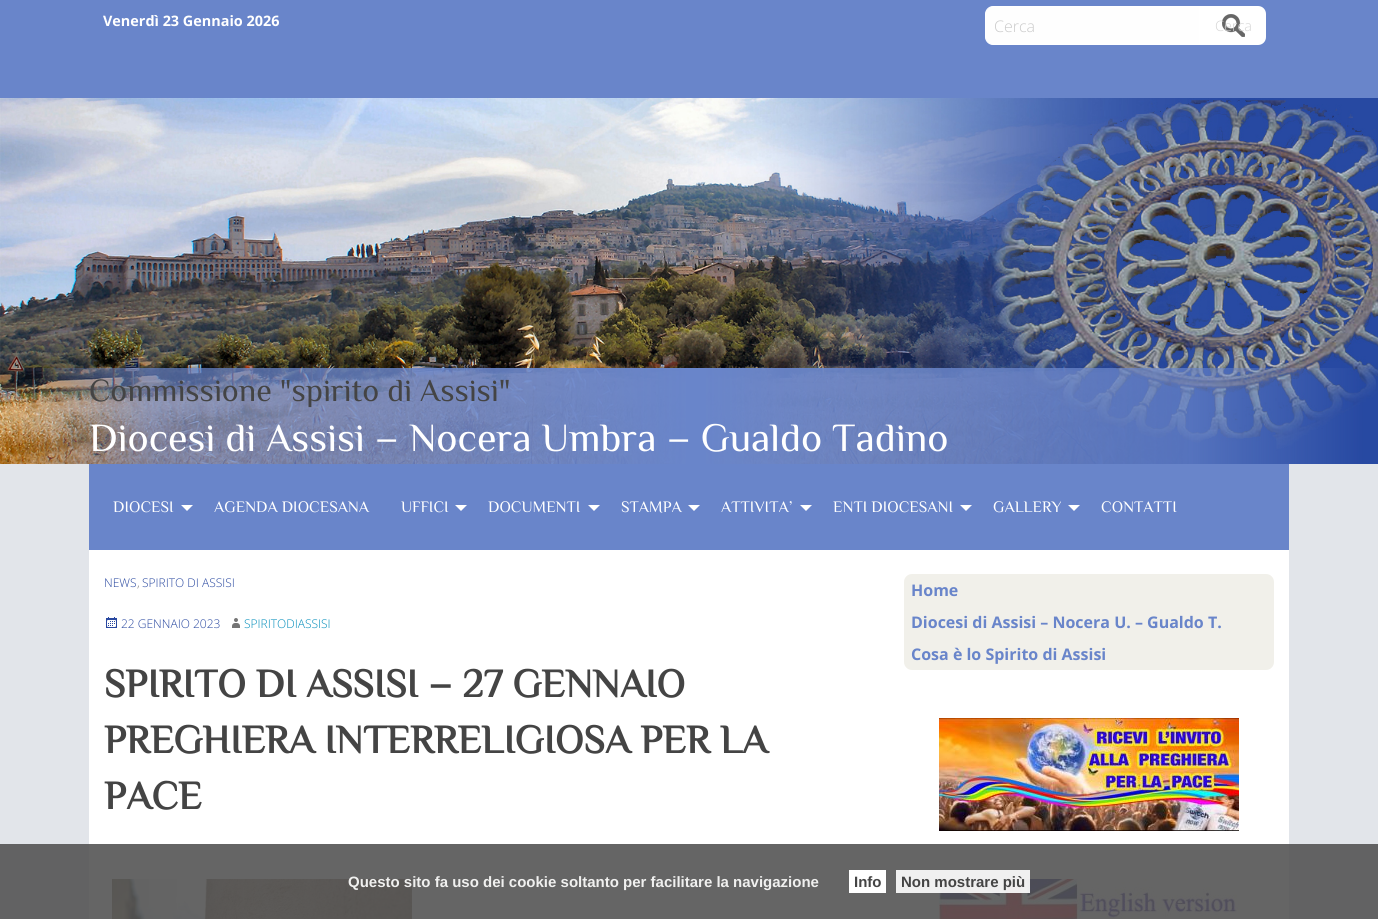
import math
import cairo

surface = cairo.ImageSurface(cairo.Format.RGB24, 1378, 919)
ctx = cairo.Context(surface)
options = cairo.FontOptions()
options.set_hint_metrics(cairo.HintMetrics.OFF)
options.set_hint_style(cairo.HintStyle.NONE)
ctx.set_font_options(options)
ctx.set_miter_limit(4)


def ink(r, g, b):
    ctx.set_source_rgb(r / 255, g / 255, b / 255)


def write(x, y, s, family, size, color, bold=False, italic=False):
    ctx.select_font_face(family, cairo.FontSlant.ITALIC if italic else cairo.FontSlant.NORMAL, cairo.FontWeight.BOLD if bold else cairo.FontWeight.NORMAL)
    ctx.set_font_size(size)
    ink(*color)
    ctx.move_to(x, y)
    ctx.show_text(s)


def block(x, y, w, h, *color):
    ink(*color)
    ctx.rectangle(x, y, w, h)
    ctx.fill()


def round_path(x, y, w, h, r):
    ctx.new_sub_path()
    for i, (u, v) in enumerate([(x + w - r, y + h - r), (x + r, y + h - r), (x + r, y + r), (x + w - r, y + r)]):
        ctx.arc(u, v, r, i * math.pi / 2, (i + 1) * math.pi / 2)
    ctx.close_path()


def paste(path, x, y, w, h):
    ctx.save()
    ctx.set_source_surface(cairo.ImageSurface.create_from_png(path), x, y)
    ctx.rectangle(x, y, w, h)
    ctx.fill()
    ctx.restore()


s1 = dict(family="Open Sans", size=14.4, color=(255, 255, 255), bold=True)
s2 = dict(family="Open Sans Light", size=16, color=(202, 202, 202))
s3 = dict(family="Open Sans Light", size=14.4, color=(213, 213, 213))
s4 = dict(family="Philosopher", size=32, color=(68, 68, 68))
s5 = dict(family="Philosopher", size=40, color=(255, 255, 255))
s6 = dict(family="Philosopher", size=16, color=(255, 255, 255))
s7 = dict(family="Open Sans Light", size=12, color=(41, 72, 160))
s8 = dict(family="Open Sans Light", size=12, color=(117, 117, 117))
s9 = dict(family="Open Sans Light", size=12, color=(0, 140, 186))
s10 = dict(family="Philosopher", size=40, color=(68, 68, 68), bold=True)
s11 = dict(family="Open Sans", size=16, color=(105, 133, 202), bold=True)
s12 = dict(family="Liberation Sans", size=15, color=(240, 240, 239), bold=True)
s13 = dict(family="Liberation Sans", size=15, color=(68, 68, 68), bold=True)

ink(226, 229, 234)
ctx.paint()
block(0, 0, 1378, 98, 105, 133, 202)
write(103, 26, "Venerdì 23 Gennaio 2026", **s1)
ink(254, 254, 254)
ctx.new_path()
ctx.move_to(993, 6.5)
ctx.line_to(1199.5, 6.5)
ctx.line_to(1199.5, 44.5)
ctx.line_to(993, 44.5)
ctx.curve_to(989, 44.5, 985.5, 41, 985.5, 37)
ctx.line_to(985.5, 14)
ctx.curve_to(985.5, 10, 989, 6.5, 993, 6.5)
ctx.close_path()
ctx.fill_preserve()
ink(255, 255, 255)
ctx.set_line_width(1)
ctx.stroke()
write(994, 32, "Cerca", **s2)
ink(255, 255, 255)
ctx.new_path()
ctx.move_to(1200, 6)
ctx.line_to(1258, 6)
ctx.curve_to(1262.5, 6, 1266, 9.5, 1266, 14)
ctx.line_to(1266, 37)
ctx.curve_to(1266, 41.5, 1262.5, 45, 1258, 45)
ctx.line_to(1200, 45)
ctx.close_path()
ctx.fill()
paste("pic1.png", 1222, 14, 23, 23)
write(1215, 31, "Cerca", **s3)
paste("pic2.png", 0, 98, 1378, 366)
write(89, 401, "Commissione \"spirito di Assisi\"", **s4)
write(89, 451, "Diocesi di Assisi – Nocera Umbra – Gualdo Tadino", **s5)
block(89, 464, 1200, 86, 105, 133, 202)
write(113, 512, "DIOCESI", **s6)
ctx.new_path()
ctx.move_to(181, 505)
ctx.line_to(193, 505)
ctx.line_to(187, 511)
ctx.close_path()
ctx.fill()
write(214, 512, "AGENDA DIOCESANA", **s6)
write(401, 512, "UFFICI", **s6)
ctx.new_path()
ctx.move_to(455, 505)
ctx.line_to(467, 505)
ctx.line_to(461, 511)
ctx.close_path()
ctx.fill()
write(488, 512, "DOCUMENTI", **s6)
ctx.new_path()
ctx.move_to(588, 505)
ctx.line_to(600, 505)
ctx.line_to(594, 511)
ctx.close_path()
ctx.fill()
write(621, 512, "STAMPA", **s6)
ctx.new_path()
ctx.move_to(688, 505)
ctx.line_to(700, 505)
ctx.line_to(694, 511)
ctx.close_path()
ctx.fill()
write(721, 512, "ATTIVITA’", **s6)
ctx.new_path()
ctx.move_to(800, 505)
ctx.line_to(812, 505)
ctx.line_to(806, 511)
ctx.close_path()
ctx.fill()
write(833, 512, "ENTI DIOCESANI", **s6)
ctx.new_path()
ctx.move_to(960, 505)
ctx.line_to(972, 505)
ctx.line_to(966, 511)
ctx.close_path()
ctx.fill()
write(993, 512, "GALLERY", **s6)
ctx.new_path()
ctx.move_to(1068, 505)
ctx.line_to(1080, 505)
ctx.line_to(1074, 511)
ctx.close_path()
ctx.fill()
write(1101, 512, "CONTATTI", **s6)
block(89, 550, 1200, 369, 255, 255, 255)
write(104, 587, "NEWS", **s7)
write(137, 587, ",", **s8)
write(142, 587, "SPIRITO DI ASSISI", **s7)
paste("pic3.png", 106, 617, 11, 11)
write(121, 628, "22 GENNAIO 2023", **s7)
paste("pic4.png", 232, 618, 8, 10)
write(244, 628, "SPIRITODIASSISI", **s9)
write(104, 697, "SPIRITO DI ASSISI – 27 GENNAIO", **s10)
write(104, 753, "PREGHIERA INTERRELIGIOSA PER LA", **s10)
write(104, 809, "PACE", **s10)
paste("pic5.png", 112, 879, 300, 40)
ink(241, 240, 234)
round_path(904, 574, 370, 96, 8)
ctx.fill()
write(911, 596, "Home", **s11)
write(911, 628, "Diocesi di Assisi – Nocera U. – Gualdo T.", **s11)
write(911, 660, "Cosa è lo Spirito di Assisi", **s11)
paste("pic6.png", 939, 718, 300, 113)
paste("pic7.png", 939, 879, 300, 40)
ctx.set_source_rgba(0.333, 0.333, 0.333, 0.9)
ctx.rectangle(0, 844, 1378, 75)
ctx.fill()
write(348, 887, "Questo sito fa uso dei cookie soltanto per facilitare la navigazione", **s12)
block(849, 870, 37, 23, 255, 255, 255)
write(854, 887, "Info", **s13)
ctx.set_source_rgba(1, 1, 1, 0.9)
ctx.rectangle(896, 870, 134, 23)
ctx.fill()
write(901, 887, "Non mostrare più", **s13)
surface.write_to_png("screenshot.png")
